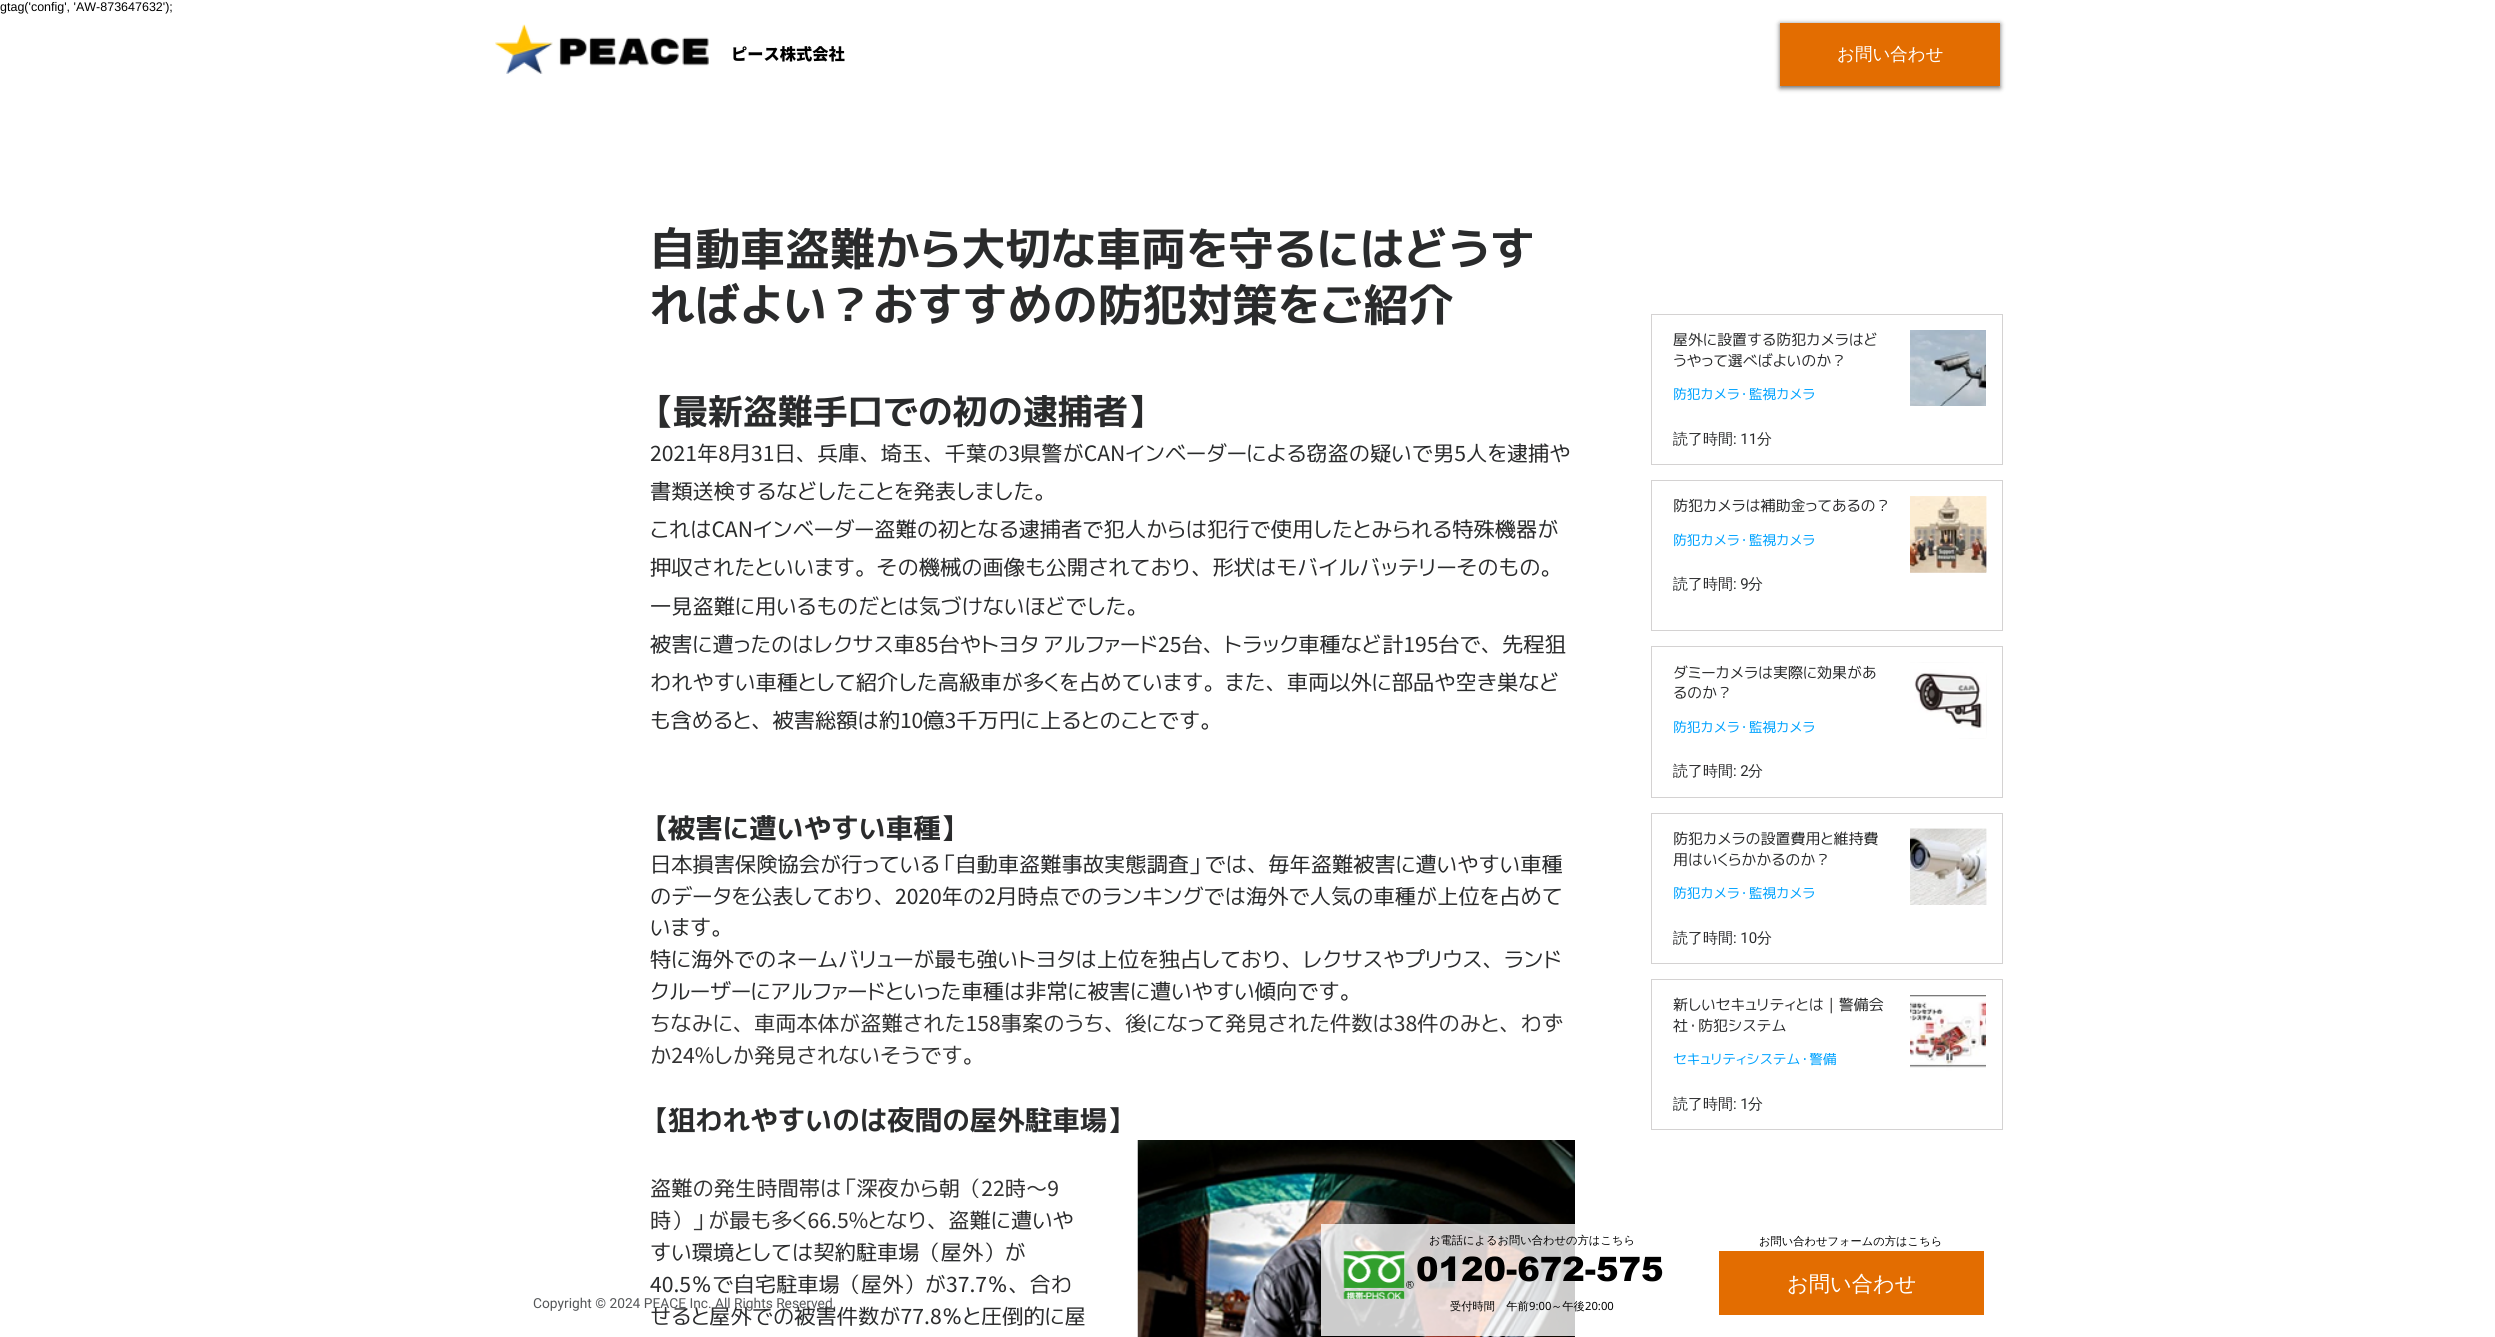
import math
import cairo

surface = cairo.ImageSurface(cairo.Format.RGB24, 2495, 1337)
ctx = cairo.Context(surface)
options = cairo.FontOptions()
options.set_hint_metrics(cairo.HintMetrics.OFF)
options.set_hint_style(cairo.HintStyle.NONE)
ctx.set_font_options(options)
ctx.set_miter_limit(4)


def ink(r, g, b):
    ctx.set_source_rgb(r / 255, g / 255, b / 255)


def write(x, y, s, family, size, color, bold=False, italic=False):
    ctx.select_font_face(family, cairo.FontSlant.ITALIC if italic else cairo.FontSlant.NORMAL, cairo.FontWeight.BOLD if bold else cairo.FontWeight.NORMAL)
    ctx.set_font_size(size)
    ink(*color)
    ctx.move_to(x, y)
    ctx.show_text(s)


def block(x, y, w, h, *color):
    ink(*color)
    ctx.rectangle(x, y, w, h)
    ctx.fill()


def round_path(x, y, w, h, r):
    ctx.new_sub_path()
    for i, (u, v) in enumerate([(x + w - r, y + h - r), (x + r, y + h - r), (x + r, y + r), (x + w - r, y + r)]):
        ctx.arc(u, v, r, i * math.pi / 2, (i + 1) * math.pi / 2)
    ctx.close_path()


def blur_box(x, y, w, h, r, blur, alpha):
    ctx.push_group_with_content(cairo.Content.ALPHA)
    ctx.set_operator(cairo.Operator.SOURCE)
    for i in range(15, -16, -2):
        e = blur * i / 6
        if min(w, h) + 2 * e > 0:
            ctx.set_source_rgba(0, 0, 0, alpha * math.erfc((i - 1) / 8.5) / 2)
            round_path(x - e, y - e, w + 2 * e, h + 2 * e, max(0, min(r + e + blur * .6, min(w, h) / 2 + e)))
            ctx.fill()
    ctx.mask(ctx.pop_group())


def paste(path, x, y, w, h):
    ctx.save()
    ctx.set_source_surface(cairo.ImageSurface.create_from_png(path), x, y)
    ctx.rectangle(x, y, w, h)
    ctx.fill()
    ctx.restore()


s1 = dict(family="Liberation Sans", size=12.5, color=(0, 0, 0))
s2 = dict(family="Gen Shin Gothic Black", size=16.25, color=(0, 0, 0))
s3 = dict(family="WenQuanYi Zen Hei Medium", size=17.5, color=(255, 255, 255))
s4 = dict(family="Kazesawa", size=45, color=(42, 43, 44), bold=True)
s5 = dict(family="Kazesawa", size=35, color=(42, 43, 44), bold=True)
s6 = dict(family="Kazesawa", size=21.25, color=(42, 43, 44))
s7 = dict(family="Kazesawa", size=27.5, color=(42, 43, 44), bold=True)
s8 = dict(family="Kazesawa", size=21.25, color=(51, 51, 51))
s9 = dict(family="Kazesawa", size=15, color=(42, 43, 44))
s10 = dict(family="Kazesawa", size=13.75, color=(0, 162, 255))
s11 = dict(family="WenQuanYi Zen Hei Medium", size=15, color=(42, 43, 44))
s12 = dict(family="Roboto", size=15, color=(42, 43, 44))
s13 = dict(family="Roboto", size=13.75, color=(84, 86, 88))
s14 = dict(family="WenQuanYi Zen Hei Medium", size=11.25, color=(0, 0, 0))
s15 = dict(family="Noto Sans", size=11.25, color=(0, 0, 0))
s16 = dict(family="arial Black", size=33.75, color=(0, 0, 0))
s17 = dict(family="WenQuanYi Zen Hei Medium", size=21.25, color=(255, 255, 255))

ink(255, 255, 255)
ctx.paint()
write(0, 11, "gtag('config', 'AW-873647632');", **s1)
paste("pic1.png", 495, 24, 214, 50)
write(731, 60, "ピース株式会社", **s2)
ink(0, 0, 0)
blur_box(1780, 24, 220, 64, 0, 2.5, 0.6)
block(1780, 23, 220, 63, 227, 109, 1)
write(1837, 60, "お問い合わせ", **s3)
write(650, 265, "自動車盗難から大切な車両を守るにはどうす", **s4)
write(650, 321, "ればよい？おすすめの防犯対策をご紹介", **s4)
write(650, 424, "【最新盗難手口での初の逮捕者】", **s5)
write(650, 461, "2021年8月31日、兵庫、埼玉、千葉の3県警がCANインベーダーによる窃盗の疑いで男5人を逮捕や", **s6)
write(650, 499, "書類送検するなどしたことを発表しました。", **s6)
write(650, 537, "これはCANインベーダー盗難の初となる逮捕者で犯人からは犯行で使用したとみられる特殊機器が", **s6)
write(650, 575, "押収されたといいます。その機械の画像も公開されており、形状はモバイルバッテリーそのもの。", **s6)
write(650, 614, "一見盗難に用いるものだとは気づけないほどでした。", **s6)
write(650, 652, "被害に遭ったのはレクサス車85台やトヨタ アルファード25台、トラック車種など計195台で、先程狙", **s6)
write(650, 690, "われやすい車種として紹介した高級車が多くを占めています。また、車両以外に部品や空き巣など", **s6)
write(650, 728, "も含めると、被害総額は約10億3千万円に上るとのことです。", **s6)
write(650, 838, "【被害に遭いやすい車種】", **s7)
write(650, 872, "日本損害保険協会が行っている「自動車盗難事故実態調査」では、毎年盗難被害に遭いやすい車種", **s6)
write(650, 904, "のデータを公表しており、2020年の2月時点でのランキングでは海外で人気の車種が上位を占めて", **s6)
write(650, 935, "います。", **s6)
write(650, 967, "特に海外でのネームバリューが最も強いトヨタは上位を独占しており、レクサスやプリウス、ランド", **s6)
write(650, 999, "クルーザーにアルファードといった車種は非常に被害に遭いやすい傾向です。", **s6)
write(650, 1031, "ちなみに、車両本体が盗難された158事案のうち、後になって発見された件数は38件のみと、わず", **s8)
write(650, 1063, "か24%しか発見されないそうです。", **s8)
write(650, 1130, "【狙われやすいのは夜間の屋外駐車場】", **s7)
write(650, 1196, "盗難の発生時間帯は「深夜から朝（22時～9", **s8)
write(650, 1228, "時）」が最も多く66.5%となり、盗難", **s8)
write(991, 1228, "に遭いや", **s6)
write(650, 1260, "すい環境としては契約駐車場（屋外）が", **s6)
write(650, 1292, "40.5％で自宅駐車場（屋外）が37.7％、合わ", **s6)
write(650, 1324, "せると屋外での被害件数が77.8％と圧倒的に屋", **s6)
paste("pic2.png", 1137, 1140, 438, 197)
ctx.rectangle(1651.5, 314.5, 351, 150)
ink(212, 210, 210)
ctx.set_line_width(1)
ctx.stroke()
write(1673, 345, "屋外に設置する防犯カメラはど", **s9)
write(1673, 366, "うやって選べばよいのか？", **s9)
write(1673, 399, "防犯カメラ・監視カメラ", **s10)
write(1673, 444, "読了時間", **s11)
write(1733, 444, ": 11", **s12)
write(1757, 444, "分", **s11)
paste("pic3.png", 1910, 330, 76, 76)
ctx.rectangle(1651.5, 480.5, 351, 150)
ink(212, 210, 210)
ctx.stroke()
write(1673, 511, "防犯カメラは補助金ってあるの？", **s9)
write(1673, 545, "防犯カメラ・監視カメラ", **s10)
write(1673, 589, "読了時間", **s11)
write(1733, 589, ": 9", **s12)
write(1748, 589, "分", **s11)
paste("pic4.png", 1910, 496, 77, 77)
paste("pic5.png", 1910, 496, 77, 77)
ctx.rectangle(1651.5, 646.5, 351, 151)
ink(212, 210, 210)
ctx.stroke()
write(1673, 678, "ダミーカメラは実際に効果があ", **s9)
write(1673, 698, "るのか？", **s9)
write(1673, 732, "防犯カメラ・監視カメラ", **s10)
write(1673, 776, "読了時間", **s11)
write(1733, 776, ": 2", **s12)
write(1748, 776, "分", **s11)
paste("pic6.png", 1910, 662, 77, 77)
paste("pic7.png", 1910, 663, 76, 75)
ctx.rectangle(1651.5, 813.5, 351, 150)
ink(212, 210, 210)
ctx.stroke()
write(1673, 844, "防犯カメラの設置費用と維持費", **s9)
write(1673, 865, "用はいくらかかるのか？", **s9)
write(1673, 898, "防犯カメラ・監視カメラ", **s10)
write(1673, 943, "読了時間", **s11)
write(1733, 943, ": 10", **s12)
write(1757, 943, "分", **s11)
paste("pic8.png", 1910, 828, 77, 77)
paste("pic9.png", 1910, 828, 77, 77)
ctx.rectangle(1651.5, 979.5, 351, 150)
ink(212, 210, 210)
ctx.stroke()
write(1673, 1010, "新しいセキュリティとは｜警備会", **s9)
write(1673, 1031, "社・防犯システム", **s9)
ctx.save()
ctx.rectangle(1673, 1053, 163, 16)
ctx.clip()
write(1673, 1064, "セキュリティシステム・警備", **s10)
ctx.restore()
write(1673, 1109, "読了時間", **s11)
write(1733, 1109, ": 1", **s12)
write(1748, 1109, "分", **s11)
paste("pic10.png", 1910, 995, 76, 76)
write(533, 1308, "Copyright © 2024 PEACE Inc. All Rights Reserved.", **s13)
ctx.set_source_rgba(1, 1, 1, 0.8)
ctx.rectangle(1321, 1224, 254, 112)
ctx.fill()
paste("pic11.png", 1343, 1251, 71, 48)
write(1429, 1244, "お電話によるお問い合わせの方はこちら", **s14)
write(1450, 1310, "受付時間　午前", **s14)
write(1529, 1310, "9:00", **s15)
write(1551, 1310, "～午後", **s14)
write(1585, 1310, "20:00", **s15)
write(1416, 1281, "0120-672-575", **s16)
write(1759, 1245, "お問い合わせフォームの方はこちら", **s14)
block(1719, 1251, 265, 64, 227, 109, 1)
write(1787, 1291, "お問い合わせ", **s17)
surface.write_to_png("screenshot.png")
